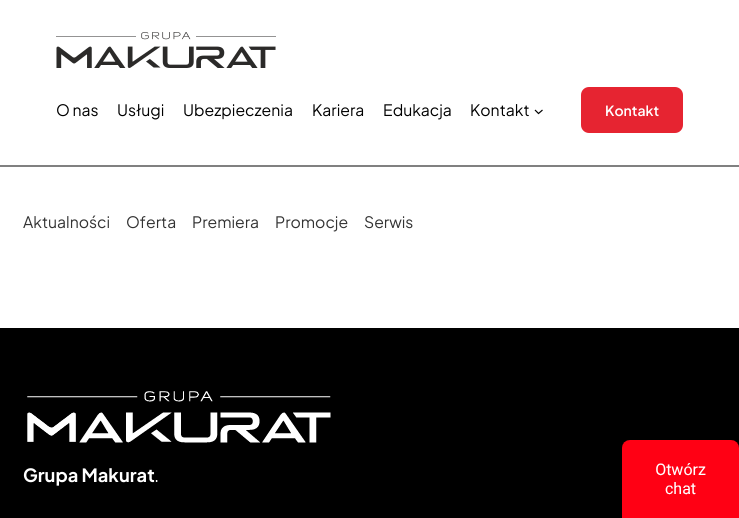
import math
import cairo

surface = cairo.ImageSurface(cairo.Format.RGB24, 739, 518)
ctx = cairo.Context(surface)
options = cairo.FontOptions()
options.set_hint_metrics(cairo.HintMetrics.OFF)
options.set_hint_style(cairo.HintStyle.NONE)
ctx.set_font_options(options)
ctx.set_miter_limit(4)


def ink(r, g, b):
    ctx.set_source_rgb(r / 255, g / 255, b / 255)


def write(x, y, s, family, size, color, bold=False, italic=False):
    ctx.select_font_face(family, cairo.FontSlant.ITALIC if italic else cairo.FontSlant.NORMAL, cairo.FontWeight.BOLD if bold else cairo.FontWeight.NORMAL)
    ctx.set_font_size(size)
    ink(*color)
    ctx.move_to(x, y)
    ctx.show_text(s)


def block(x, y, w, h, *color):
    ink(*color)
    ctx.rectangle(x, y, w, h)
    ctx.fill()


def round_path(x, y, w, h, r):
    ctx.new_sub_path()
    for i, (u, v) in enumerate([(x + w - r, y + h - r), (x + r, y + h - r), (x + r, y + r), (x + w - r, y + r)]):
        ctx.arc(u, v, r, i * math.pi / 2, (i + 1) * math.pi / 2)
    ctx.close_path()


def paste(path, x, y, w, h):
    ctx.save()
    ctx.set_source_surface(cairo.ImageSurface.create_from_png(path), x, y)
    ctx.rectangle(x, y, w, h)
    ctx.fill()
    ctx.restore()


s1 = dict(family="Plus Jakarta Sans", size=15.75, color=(0, 0, 0))
s2 = dict(family="Plus Jakarta Sans SemiBold", size=14, color=(255, 255, 255))
s3 = dict(family="Plus Jakarta Sans", size=15.75, color=(51, 51, 51))
s4 = dict(family="Plus Jakarta Sans", size=18.25, color=(255, 255, 255), bold=True)
s5 = dict(family="Plus Jakarta Sans", size=18.25, color=(255, 255, 255))

ink(255, 255, 255)
ctx.paint()
paste("pic1.png", 56, 32, 220, 36)
write(56, 116, "O nas", **s1)
write(117, 116, "Usługi", **s1)
write(183, 116, "Ubezpieczenia", **s1)
write(312, 116, "Kariera", **s1)
write(383, 116, "Edukacja", **s1)
write(470, 116, "Kontakt", **s1)
ctx.new_path()
ctx.move_to(535, 110)
ctx.line_to(538.5, 113.5)
ctx.line_to(542.5, 110)
ctx.set_line_width(1.2)
ctx.stroke()
ink(230, 36, 49)
round_path(581, 87, 102, 46, 8)
ctx.fill()
write(605, 116, "Kontakt", **s2)
block(0, 165, 739, 2, 128, 128, 128)
write(23, 228, "Aktualności", **s3)
write(126, 228, "Oferta", **s3)
write(192, 228, "Premiera", **s3)
write(275, 228, "Promocje", **s3)
write(364, 228, "Serwis", **s3)
block(0, 328, 739, 190, 0, 0, 0)
paste("pic2.png", 27, 391, 304, 52)
write(23, 482, "Grupa Makurat", **s4)
write(154, 482, ".", **s5)
paste("pic3.png", 622, 440, 117, 78)
surface.write_to_png("screenshot.png")
